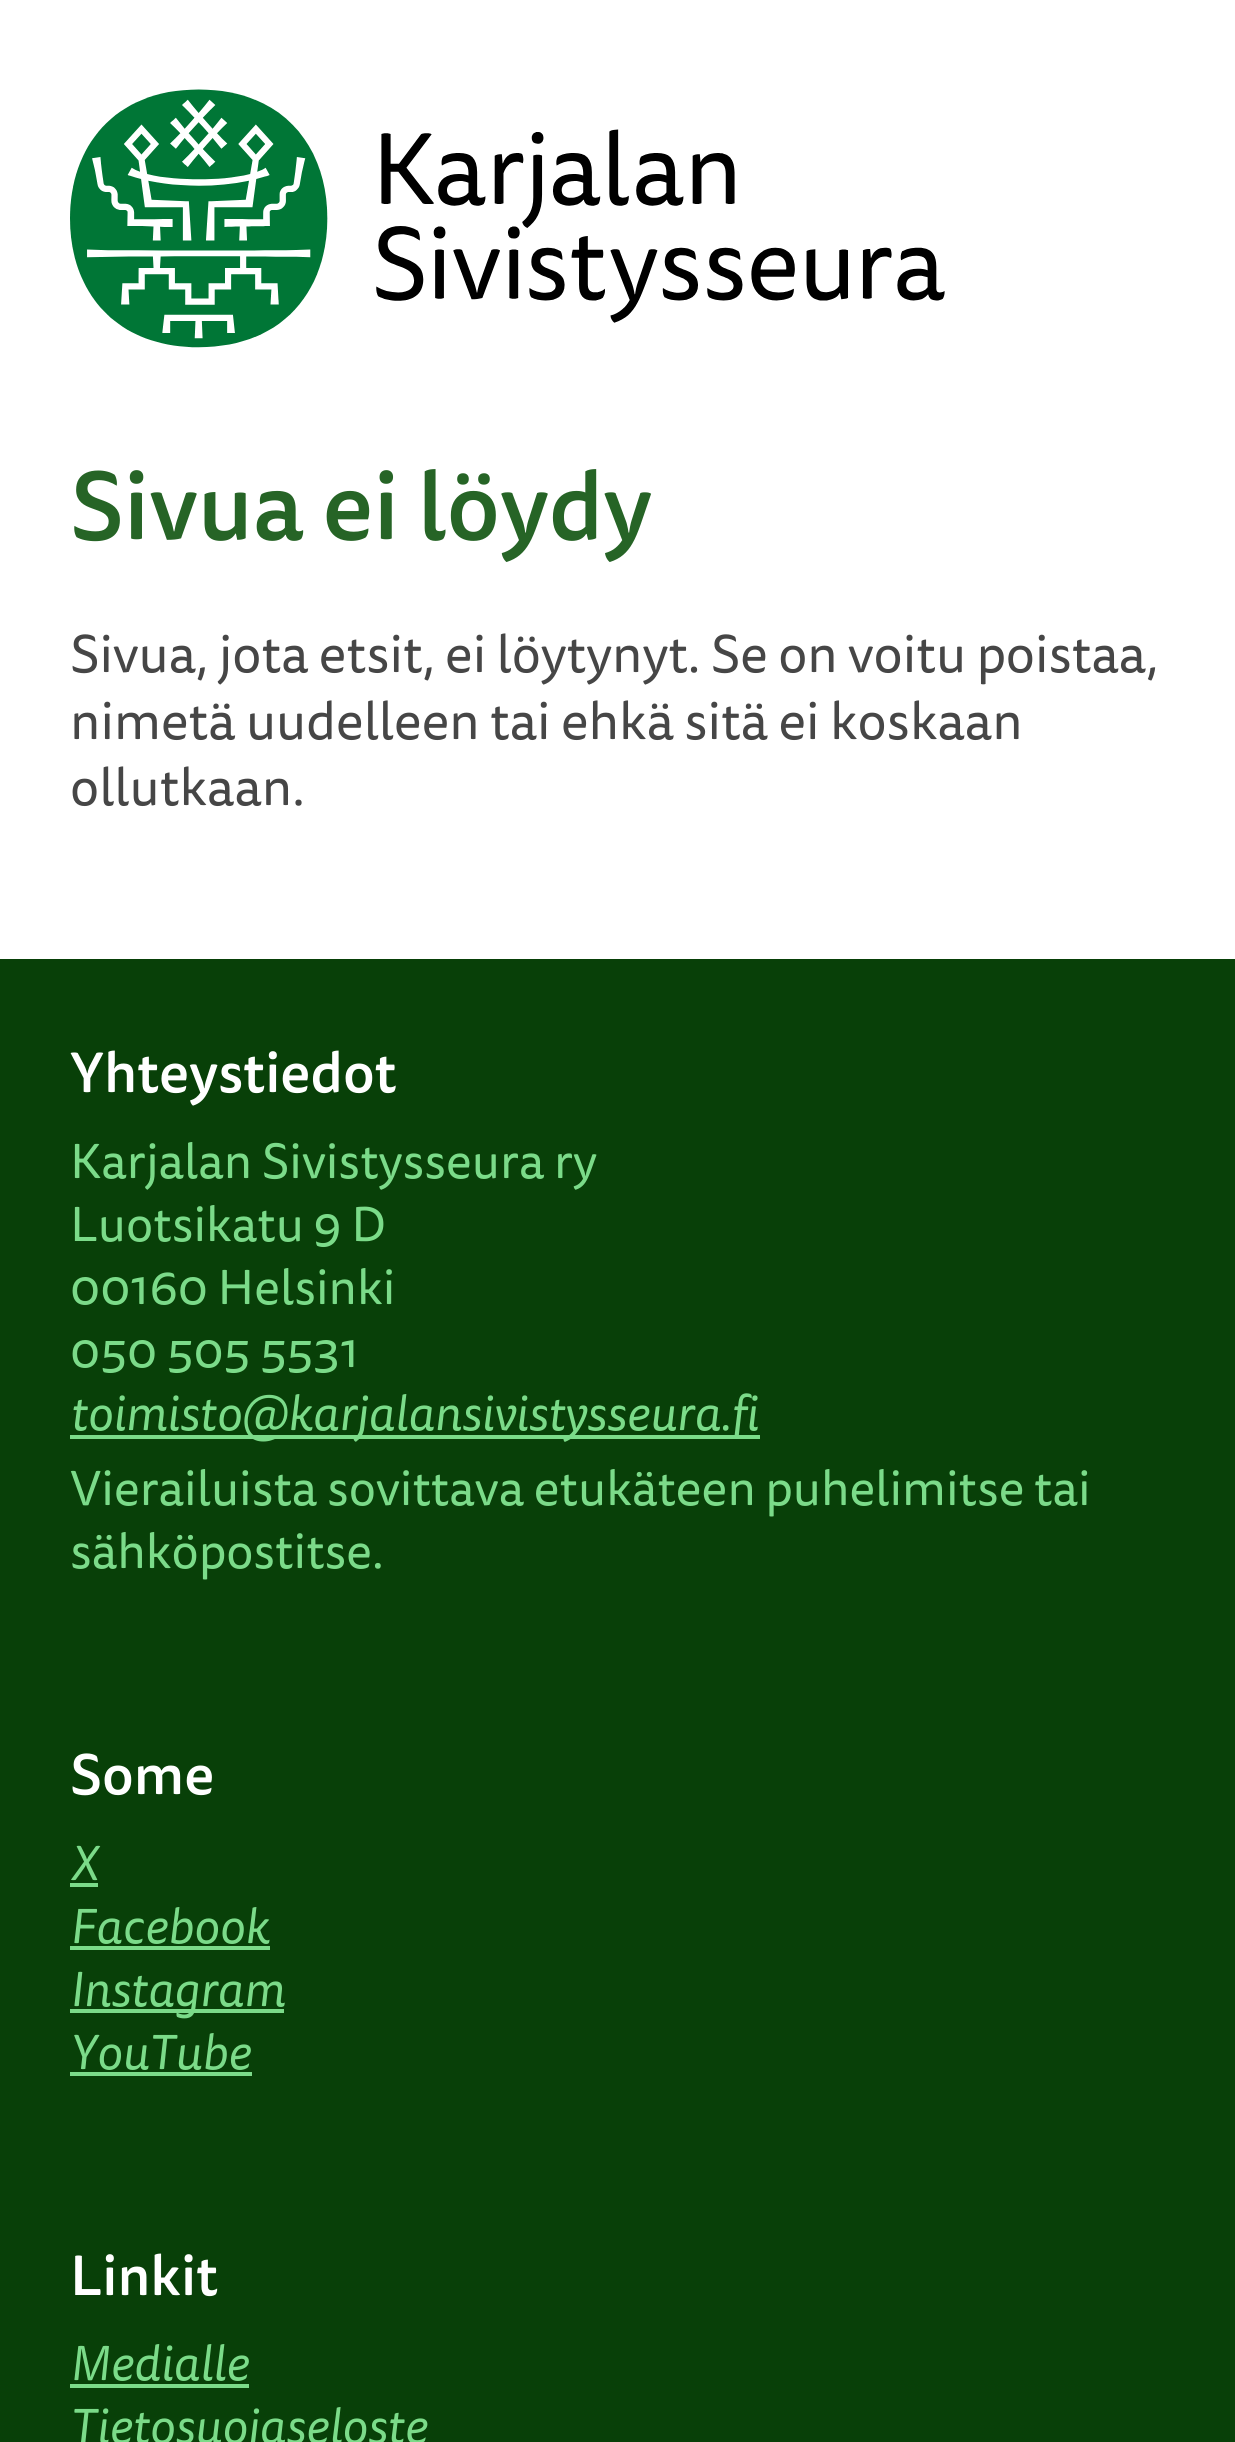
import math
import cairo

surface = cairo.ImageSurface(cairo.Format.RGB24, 1235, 2442)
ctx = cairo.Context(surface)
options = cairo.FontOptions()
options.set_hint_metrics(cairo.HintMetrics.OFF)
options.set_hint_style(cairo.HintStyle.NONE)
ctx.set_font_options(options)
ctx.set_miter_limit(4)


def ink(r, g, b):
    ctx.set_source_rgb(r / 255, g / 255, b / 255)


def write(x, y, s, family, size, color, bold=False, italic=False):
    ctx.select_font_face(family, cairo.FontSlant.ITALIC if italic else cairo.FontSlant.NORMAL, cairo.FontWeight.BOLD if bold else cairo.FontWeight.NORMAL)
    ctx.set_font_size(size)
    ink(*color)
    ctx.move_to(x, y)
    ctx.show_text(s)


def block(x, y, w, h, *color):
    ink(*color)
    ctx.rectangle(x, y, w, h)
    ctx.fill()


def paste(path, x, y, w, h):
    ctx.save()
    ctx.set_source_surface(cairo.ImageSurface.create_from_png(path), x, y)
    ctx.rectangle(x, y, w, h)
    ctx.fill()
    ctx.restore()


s1 = dict(family="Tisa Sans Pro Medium", size=94.5, color=(38, 100, 38))
s2 = dict(family="Tisa Sans Pro", size=52.5, color=(70, 70, 70))
s3 = dict(family="Tisa Sans Pro Medium", size=56, color=(255, 255, 255))
s4 = dict(family="Tisa Sans Pro", size=49, color=(123, 219, 137))
s5 = dict(family="Tisa Sans Pro", size=49, color=(123, 219, 137), italic=True)

ink(255, 255, 255)
ctx.paint()
paste("pic1.png", 70, 89, 875, 259)
write(70, 539, "Sivua ei löydy", **s1)
write(70, 672, "Sivua, jota etsit, ei löytynyt. Se on voitu poistaa,", **s2)
write(70, 739, "nimetä uudelleen tai ehkä sitä ei koskaan", **s2)
write(70, 805, "ollutkaan.", **s2)
block(0, 959, 1235, 1483, 8, 64, 8)
write(70, 1092, "Yhteystiedot", **s3)
write(70, 1178, "Karjalan Sivistysseura ry", **s4)
write(70, 1241, "Luotsikatu 9 D", **s4)
write(70, 1304, "00160 Helsinki", **s4)
write(70, 1367, "050 505 5531", **s4)
block(70, 1435, 690, 4, 123, 219, 137)
write(70, 1430, "toimisto@karjalansivistysseura.fi", **s5)
write(70, 1505, "Vierailuista sovittava etukäteen puhelimitse tai", **s4)
write(70, 1568, "sähköpostitse.", **s4)
write(70, 1794, "Some", **s3)
write(70, 1880, "X", **s5)
block(70, 1883, 28, 4, 123, 219, 137)
write(70, 1943, "Facebook", **s5)
block(70, 1946, 200, 4, 123, 219, 137)
block(70, 2009, 214, 4, 123, 219, 137)
write(70, 2006, "Instagram", **s5)
write(70, 2069, "YouTube", **s5)
block(70, 2072, 182, 4, 123, 219, 137)
write(70, 2295, "Linkit", **s3)
write(70, 2380, "Medialle", **s5)
block(70, 2384, 179, 4, 123, 219, 137)
write(70, 2443, "Tietosuojaseloste", **s5)
surface.write_to_png("screenshot.png")
